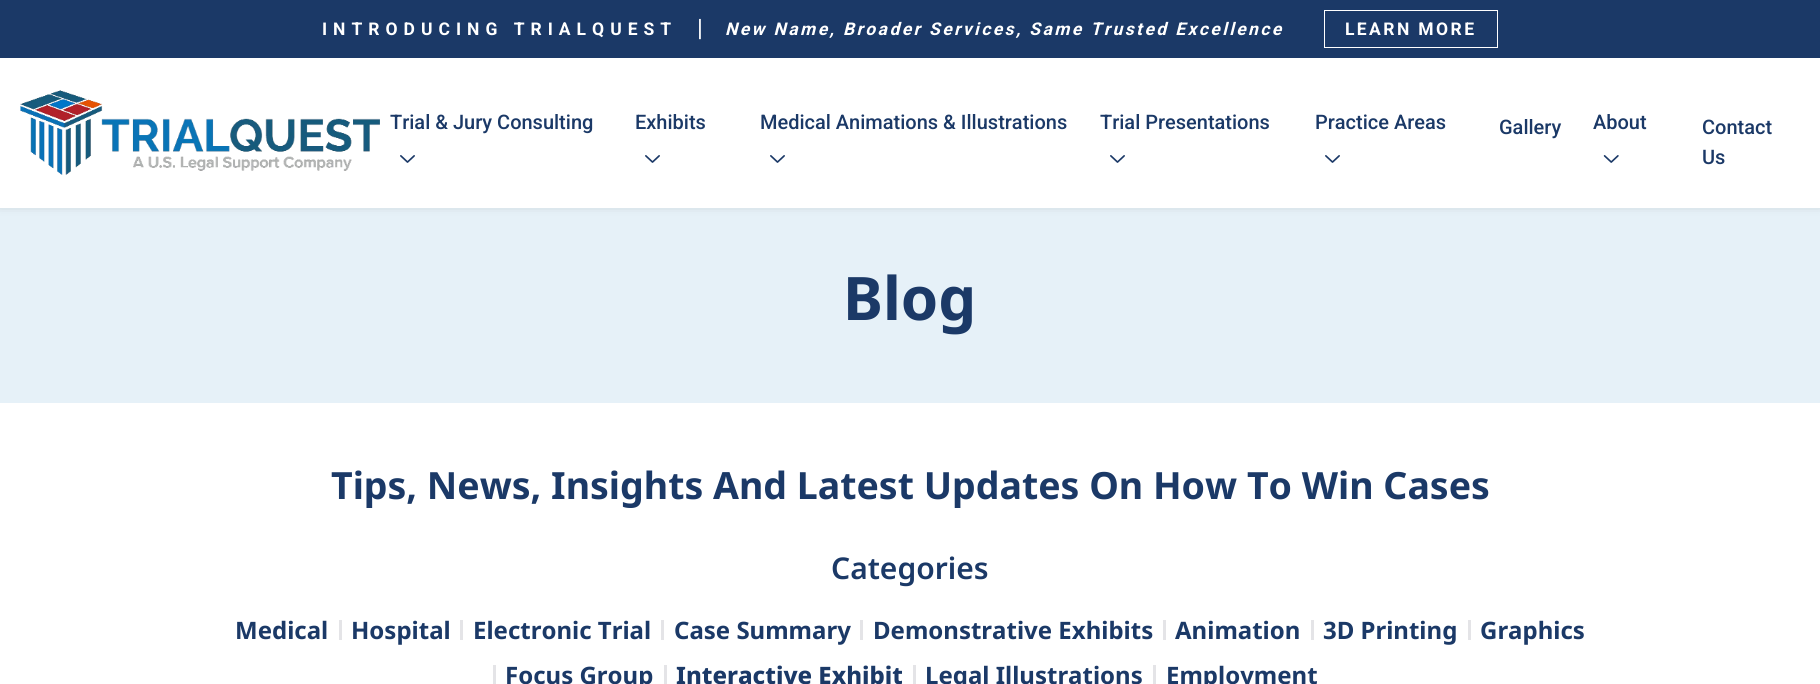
import math
import cairo

surface = cairo.ImageSurface(cairo.Format.RGB24, 1820, 684)
ctx = cairo.Context(surface)
options = cairo.FontOptions()
options.set_hint_metrics(cairo.HintMetrics.OFF)
options.set_hint_style(cairo.HintStyle.NONE)
ctx.set_font_options(options)
ctx.set_miter_limit(4)


def ink(r, g, b):
    ctx.set_source_rgb(r / 255, g / 255, b / 255)


def write(x, y, s, family, size, color, bold=False, italic=False):
    ctx.select_font_face(family, cairo.FontSlant.ITALIC if italic else cairo.FontSlant.NORMAL, cairo.FontWeight.BOLD if bold else cairo.FontWeight.NORMAL)
    ctx.set_font_size(size)
    ink(*color)
    ctx.move_to(x, y)
    ctx.show_text(s)


def write_spaced(x, y, s, letter, word):
    ctx.move_to(x, y)
    for ch in s:
        ctx.show_text(ch)
        ctx.rel_move_to(letter + word * (ch == ' '), 0)


def block(x, y, w, h, *color):
    ink(*color)
    ctx.rectangle(x, y, w, h)
    ctx.fill()


def round_path(x, y, w, h, r):
    ctx.new_sub_path()
    for i, (u, v) in enumerate([(x + w - r, y + h - r), (x + r, y + h - r), (x + r, y + r), (x + w - r, y + r)]):
        ctx.arc(u, v, r, i * math.pi / 2, (i + 1) * math.pi / 2)
    ctx.close_path()


def blur_box(x, y, w, h, r, blur, alpha):
    ctx.push_group_with_content(cairo.Content.ALPHA)
    ctx.set_operator(cairo.Operator.SOURCE)
    for i in range(15, -16, -2):
        e = blur * i / 6
        if min(w, h) + 2 * e > 0:
            ctx.set_source_rgba(0, 0, 0, alpha * math.erfc((i - 1) / 8.5) / 2)
            round_path(x - e, y - e, w + 2 * e, h + 2 * e, max(0, min(r + e + blur * .6, min(w, h) / 2 + e)))
            ctx.fill()
    ctx.mask(ctx.pop_group())


def paste(path, x, y, w, h):
    ctx.save()
    ctx.set_source_surface(cairo.ImageSurface.create_from_png(path), x, y)
    ctx.rectangle(x, y, w, h)
    ctx.fill()
    ctx.restore()


s1 = dict(family="Roboto Medium", size=20, color=(27, 57, 103))
s2 = dict(family="Noto Sans", size=60, color=(27, 57, 103), bold=True)
s3 = dict(family="Noto Sans", size=37.5, color=(27, 57, 103), bold=True)
s4 = dict(family="Noto Sans SemiBold", size=30, color=(27, 57, 103))
s5 = dict(family="Noto Sans", size=24, color=(27, 57, 103), bold=True)
s6 = dict(family="Noto Sans ExtraBold", size=24, color=(27, 57, 103))

ink(255, 255, 255)
ctx.paint()
block(0, 208, 1820, 195, 230, 241, 248)
ink(0, 0, 0)
blur_box(0, -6, 1820, 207, 0, 6, 0.5)
block(0, 58, 1820, 150, 255, 255, 255)
block(0, 0, 1820, 58, 27, 57, 103)
ctx.select_font_face("Roboto", cairo.FontSlant.NORMAL, cairo.FontWeight.BOLD)
ctx.set_font_size(17.5)
ink(255, 255, 255)
write_spaced(322, 35, "INTRODUCING TRIALQUEST", 6, 0)
ctx.select_font_face("Roboto")
ctx.set_font_size(24)
write_spaced(697, 36, "|", 2.4, 0)
ctx.select_font_face("Roboto", cairo.FontSlant.ITALIC, cairo.FontWeight.BOLD)
ctx.set_font_size(17.5)
write_spaced(725, 35, "New Name, Broader Services, Same Trusted Excellence", 2.4, 0)
ctx.rectangle(1324.5, 10.5, 173, 37)
ctx.set_line_width(1)
ctx.stroke()
ctx.select_font_face("Roboto", cairo.FontSlant.NORMAL, cairo.FontWeight.BOLD)
write_spaced(1345, 35, "LEARN MORE", 2.4, 0)
paste("pic1.png", 20, 90, 360, 85)
write(390, 129, "Trial & Jury Consulting", **s1)
paste("pic2.png", 400, 155, 15, 8)
write(635, 129, "Exhibits", **s1)
paste("pic2.png", 645, 155, 15, 8)
write(760, 129, "Medical Animations & Illustrations", **s1)
paste("pic2.png", 770, 155, 15, 8)
write(1100, 129, "Trial Presentations", **s1)
paste("pic2.png", 1110, 155, 15, 8)
write(1315, 129, "Practice Areas", **s1)
paste("pic2.png", 1325, 155, 15, 8)
write(1499, 134, "Gallery", **s1)
write(1593, 129, "About", **s1)
paste("pic3.png", 1603, 155, 16, 8)
write(1702, 134, "Contact", **s1)
write(1702, 164, "Us", **s1)
write(843, 320, "Blog", **s2)
write(331, 499, "Tips, News, Insights And Latest Updates On How To Win Cases", **s3)
write(831, 579, "Categories", **s4)
write(235, 639, "Medical", **s5)
block(339, 620, 3, 20, 228, 228, 231)
write(351, 639, "Hospital", **s5)
block(460, 620, 3, 20, 228, 228, 231)
write(473, 639, "Electronic Trial", **s5)
block(661, 620, 3, 20, 228, 228, 231)
write(674, 639, "Case Summary", **s5)
block(860, 620, 3, 20, 228, 228, 231)
write(873, 639, "Demonstrative Exhibits", **s5)
block(1163, 620, 3, 20, 228, 228, 231)
write(1175, 639, "Animation", **s5)
block(1311, 620, 3, 20, 228, 228, 231)
write(1323, 639, "3D Printing", **s5)
block(1468, 620, 3, 20, 228, 228, 231)
write(1480, 639, "Graphics", **s5)
block(493, 665, 3, 19, 228, 228, 231)
write(505, 684, "Focus Group", **s5)
block(664, 665, 3, 19, 228, 228, 231)
write(676, 684, "Interactive Exhibit", **s6)
block(913, 665, 3, 19, 228, 228, 231)
write(925, 684, "Legal Illustrations", **s5)
block(1153, 665, 3, 19, 228, 228, 231)
write(1166, 684, "Employment", **s5)
surface.write_to_png("screenshot.png")
